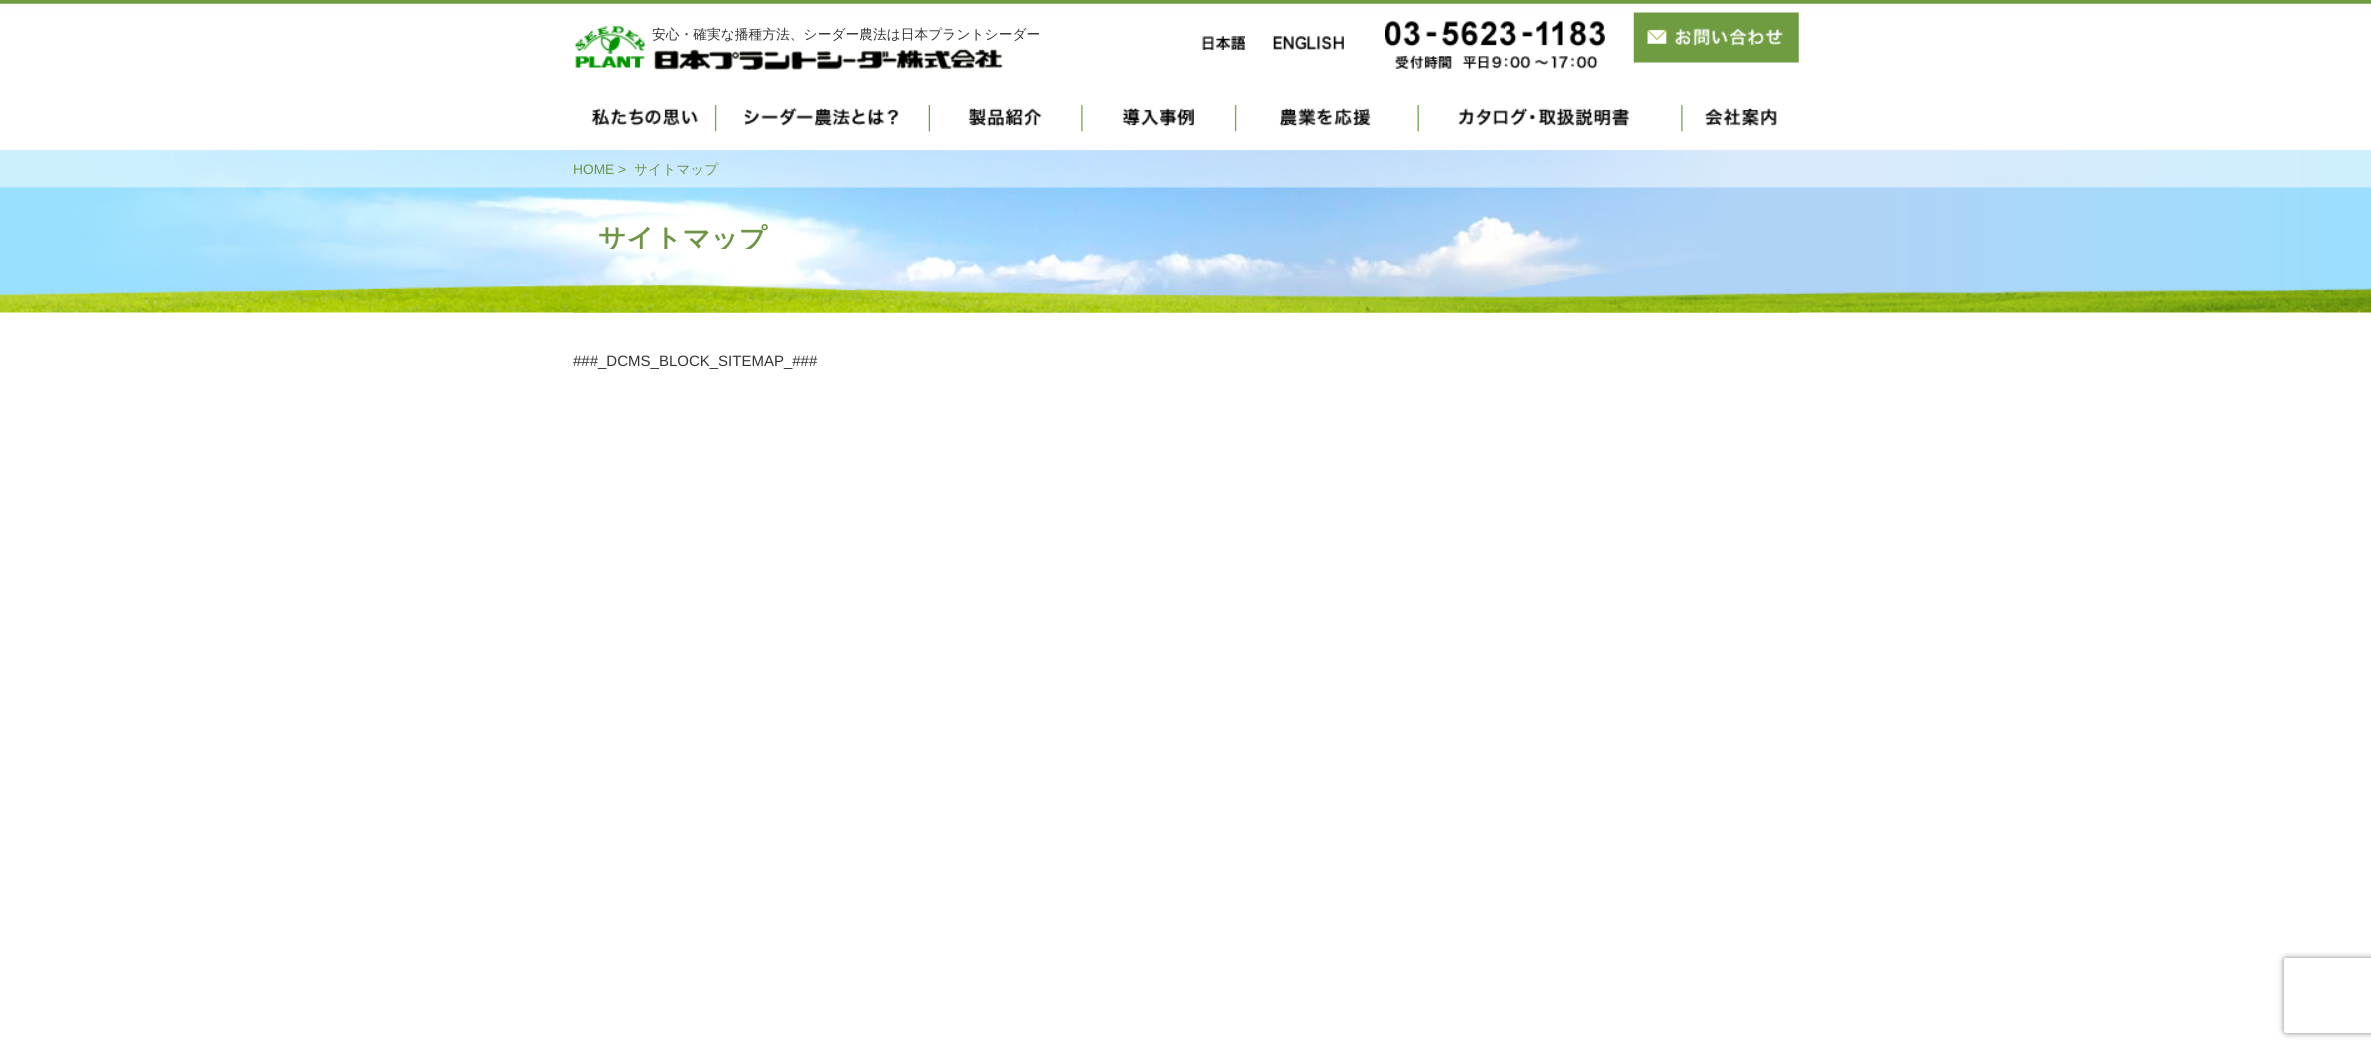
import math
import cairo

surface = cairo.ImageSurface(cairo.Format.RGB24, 2371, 1050)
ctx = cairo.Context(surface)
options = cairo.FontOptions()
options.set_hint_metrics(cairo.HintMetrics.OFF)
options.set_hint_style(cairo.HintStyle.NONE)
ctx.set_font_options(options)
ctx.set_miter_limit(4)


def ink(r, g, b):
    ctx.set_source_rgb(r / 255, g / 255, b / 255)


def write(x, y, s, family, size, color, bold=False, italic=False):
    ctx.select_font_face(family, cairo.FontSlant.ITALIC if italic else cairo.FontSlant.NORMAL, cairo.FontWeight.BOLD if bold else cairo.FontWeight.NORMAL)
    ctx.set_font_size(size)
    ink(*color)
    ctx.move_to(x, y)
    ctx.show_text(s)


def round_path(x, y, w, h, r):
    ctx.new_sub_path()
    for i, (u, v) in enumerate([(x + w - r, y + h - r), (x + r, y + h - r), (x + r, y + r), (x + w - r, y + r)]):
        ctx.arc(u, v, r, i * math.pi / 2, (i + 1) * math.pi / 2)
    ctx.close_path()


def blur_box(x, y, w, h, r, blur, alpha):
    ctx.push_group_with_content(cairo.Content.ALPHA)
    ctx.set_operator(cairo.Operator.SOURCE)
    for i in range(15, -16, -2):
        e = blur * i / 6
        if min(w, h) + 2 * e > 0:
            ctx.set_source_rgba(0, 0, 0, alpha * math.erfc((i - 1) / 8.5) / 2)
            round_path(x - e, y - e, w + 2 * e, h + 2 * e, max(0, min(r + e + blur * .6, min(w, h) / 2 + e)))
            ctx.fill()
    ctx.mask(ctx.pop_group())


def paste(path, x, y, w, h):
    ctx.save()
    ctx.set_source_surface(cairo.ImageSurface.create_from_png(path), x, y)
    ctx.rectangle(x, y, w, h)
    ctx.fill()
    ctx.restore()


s1 = dict(family="WenQuanYi Zen Hei Medium", size=13.75, color=(51, 51, 51))
s2 = dict(family="Liberation Sans", size=13.75, color=(110, 148, 71))
s3 = dict(family="WenQuanYi Zen Hei Medium", size=13.75, color=(110, 148, 71))
s4 = dict(family="WenQuanYi Zen Hei", size=27.5, color=(110, 148, 71), bold=True)
s5 = dict(family="Liberation Sans", size=15, color=(51, 51, 51))

ink(255, 255, 255)
ctx.paint()
paste("pic1.png", 0, 0, 2371, 313)
paste("pic2.png", 573, 216, 1226, 97)
paste("pic3.png", 574, 26, 429, 44)
paste("pic4.png", 1385, 21, 220, 48)
paste("pic5.png", 1633, 12, 166, 51)
write(652, 39, "安心・確実な播種方法、シーダー農法は日本プラントシーダー", **s1)
paste("pic6.png", 1202, 36, 43, 14)
paste("pic7.png", 1273, 36, 71, 14)
paste("pic8.png", 591, 105, 126, 27)
paste("pic9.png", 743, 105, 187, 27)
paste("pic10.png", 968, 105, 115, 27)
paste("pic11.png", 1122, 105, 115, 27)
paste("pic12.png", 1279, 105, 140, 27)
paste("pic13.png", 1458, 105, 225, 27)
paste("pic14.png", 1705, 108, 72, 19)
write(573, 174, "HOME >", **s2)
write(634, 174, "サイトマップ", **s3)
ctx.save()
ctx.rectangle(574, 188, 900, 61)
ctx.clip()
write(598, 248, "サイトマップ", **s4)
ctx.restore()
write(573, 366, "###_DCMS_BLOCK_SITEMAP_###", **s5)
ctx.save()
ctx.set_fill_rule(cairo.FillRule.EVEN_ODD)
ctx.new_path()
ctx.move_to(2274, 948)
ctx.line_to(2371, 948)
ctx.line_to(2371, 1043)
ctx.line_to(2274, 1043)
ctx.close_path()
ctx.move_to(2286.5, 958)
ctx.line_to(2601.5, 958)
ctx.curve_to(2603, 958, 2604, 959, 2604, 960.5)
ctx.line_to(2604, 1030.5)
ctx.curve_to(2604, 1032, 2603, 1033, 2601.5, 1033)
ctx.line_to(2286.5, 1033)
ctx.curve_to(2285, 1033, 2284, 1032, 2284, 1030.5)
ctx.line_to(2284, 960.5)
ctx.curve_to(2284, 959, 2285, 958, 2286.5, 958)
ctx.close_path()
ctx.clip()
ink(128, 128, 128)
blur_box(2284, 958, 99, 75, 2.5, 3, 1)
ctx.restore()
surface.write_to_png("screenshot.png")
